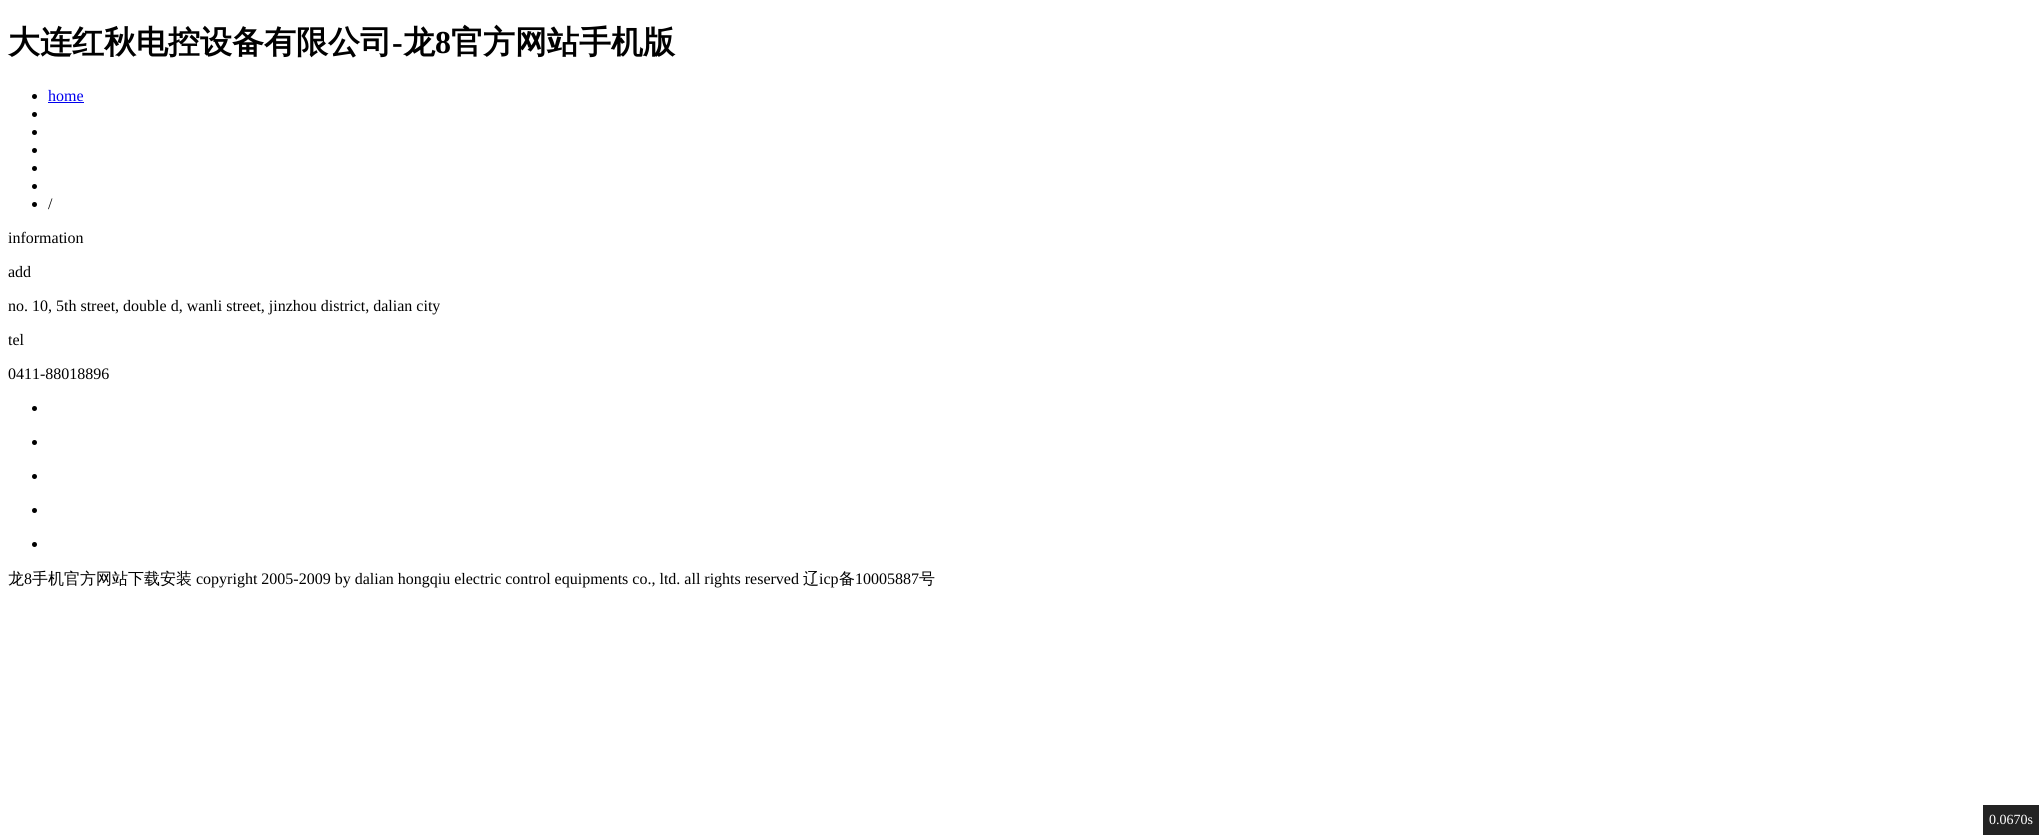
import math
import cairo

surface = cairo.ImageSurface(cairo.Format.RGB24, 2039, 835)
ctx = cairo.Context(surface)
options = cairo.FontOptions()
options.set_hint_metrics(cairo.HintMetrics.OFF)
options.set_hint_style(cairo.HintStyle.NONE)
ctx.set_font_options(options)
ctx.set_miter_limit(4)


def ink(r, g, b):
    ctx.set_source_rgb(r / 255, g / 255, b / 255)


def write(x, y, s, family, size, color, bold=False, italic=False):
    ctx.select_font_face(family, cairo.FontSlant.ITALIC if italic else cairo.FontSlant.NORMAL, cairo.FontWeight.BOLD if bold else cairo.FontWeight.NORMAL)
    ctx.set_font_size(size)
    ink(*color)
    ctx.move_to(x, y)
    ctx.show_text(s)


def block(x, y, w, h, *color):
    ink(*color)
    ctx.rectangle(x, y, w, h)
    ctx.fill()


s1 = dict(family="WenQuanYi Zen Hei", size=32, color=(0, 0, 0), bold=True)
s2 = dict(family="Liberation Serif", size=32, color=(0, 0, 0), bold=True)
s3 = dict(family="Liberation Serif", size=16, color=(0, 0, 238))
s4 = dict(family="Liberation Serif", size=16, color=(0, 0, 0))
s5 = dict(family="WenQuanYi Zen Hei Medium", size=16, color=(0, 0, 0))
s6 = dict(family="Liberation Serif", size=14, color=(255, 255, 255))

ink(255, 255, 255)
ctx.paint()
write(8, 53, "大连红秋电控设备有限公司", **s1)
write(392, 53, "-", **s2)
write(403, 53, "龙", **s1)
write(435, 53, "8", **s2)
write(451, 53, "官方网站手机版", **s1)
ctx.new_path()
ctx.arc(34.5, 96.5, 2.5, 0, 2 * math.pi)
ctx.fill()
write(48, 101, "home", **s3)
block(48, 102, 36, 1, 0, 0, 238)
ink(0, 0, 0)
ctx.new_path()
ctx.arc(34.5, 114.5, 2.5, 0, 2 * math.pi)
ctx.fill()
ctx.arc(34.5, 132.5, 2.5, 0, 2 * math.pi)
ctx.fill()
ctx.arc(34.5, 150.5, 2.5, 0, 2 * math.pi)
ctx.fill()
ctx.arc(34.5, 168.5, 2.5, 0, 2 * math.pi)
ctx.fill()
ctx.arc(34.5, 186.5, 2.5, 0, 2 * math.pi)
ctx.fill()
ctx.arc(34.5, 204.5, 2.5, 0, 2 * math.pi)
ctx.fill()
write(48, 209, "/", **s4)
write(8, 243, "information", **s4)
write(8, 277, "add", **s4)
write(8, 311, "no. 10, 5th street, double d, wanli street, jinzhou district, dalian city", **s4)
write(8, 345, "tel", **s4)
write(8, 379, "0411-88018896", **s4)
ctx.new_path()
ctx.arc(34.5, 408.5, 2.5, 0, 2 * math.pi)
ctx.fill()
ctx.arc(34.5, 442.5, 2.5, 0, 2 * math.pi)
ctx.fill()
ctx.arc(34.5, 476.5, 2.5, 0, 2 * math.pi)
ctx.fill()
ctx.arc(34.5, 510.5, 2.5, 0, 2 * math.pi)
ctx.fill()
ctx.arc(34.5, 544.5, 2.5, 0, 2 * math.pi)
ctx.fill()
write(8, 584, "龙", **s5)
write(24, 584, "8", **s4)
write(32, 584, "手机官方网站下载安装", **s5)
write(196, 584, "copyright 2005-2009 by dalian hongqiu electric control equipments co., ltd. all rights reserved", **s4)
write(803, 584, "辽", **s5)
write(819, 584, "icp", **s4)
write(839, 584, "备", **s5)
write(855, 584, "10005887", **s4)
write(919, 584, "号", **s5)
block(1983, 805, 56, 30, 35, 35, 35)
write(1989, 824, "0.0670s", **s6)
surface.write_to_png("screenshot.png")
